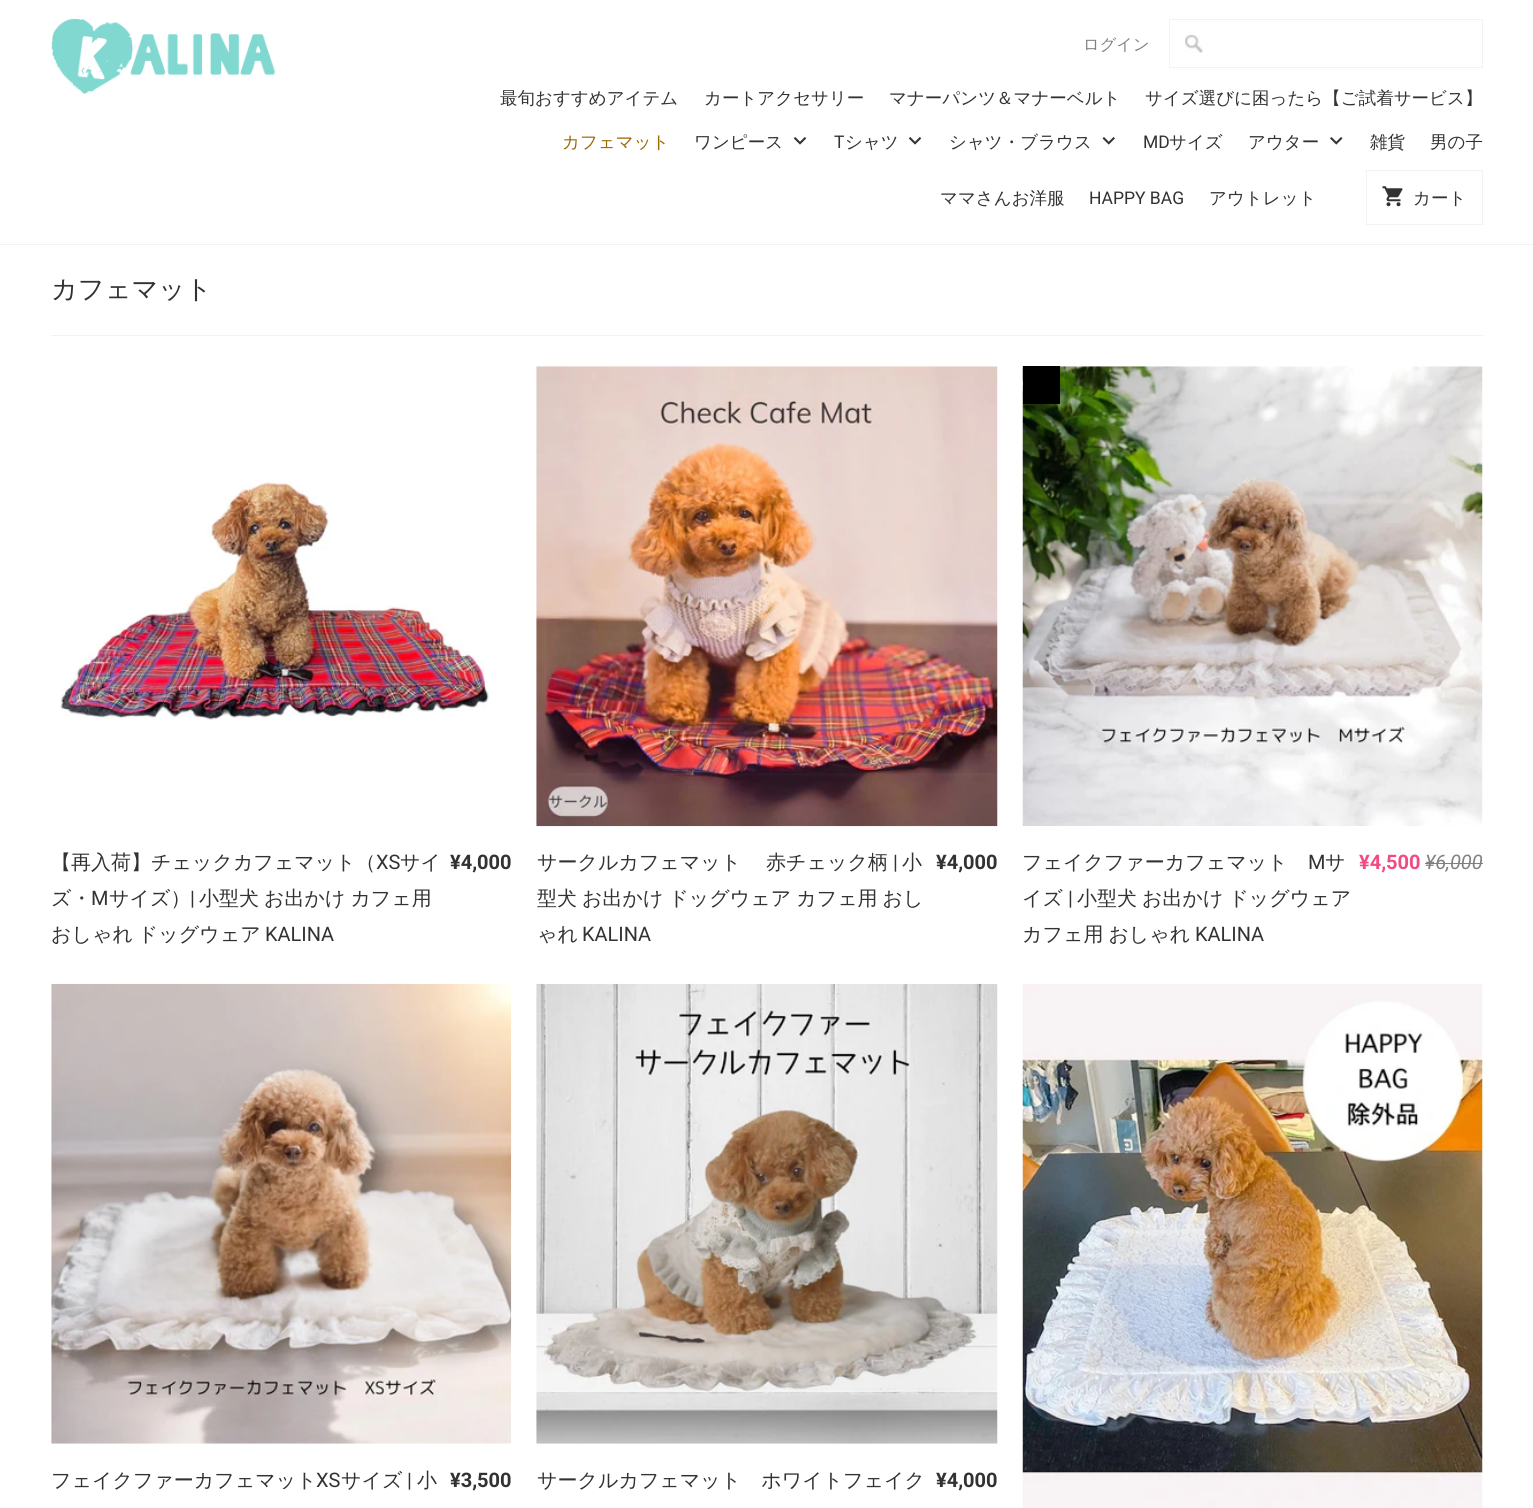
import math
import cairo

surface = cairo.ImageSurface(cairo.Format.RGB24, 1533, 1508)
ctx = cairo.Context(surface)
options = cairo.FontOptions()
options.set_hint_metrics(cairo.HintMetrics.OFF)
options.set_hint_style(cairo.HintStyle.NONE)
ctx.set_font_options(options)
ctx.set_miter_limit(4)


def ink(r, g, b):
    ctx.set_source_rgb(r / 255, g / 255, b / 255)


def write(x, y, s, family, size, color, bold=False, italic=False):
    ctx.select_font_face(family, cairo.FontSlant.ITALIC if italic else cairo.FontSlant.NORMAL, cairo.FontWeight.BOLD if bold else cairo.FontWeight.NORMAL)
    ctx.set_font_size(size)
    ink(*color)
    ctx.move_to(x, y)
    ctx.show_text(s)


def write_spaced(x, y, s, letter, word):
    ctx.move_to(x, y)
    for ch in s:
        ctx.show_text(ch)
        ctx.rel_move_to(letter + word * (ch == ' '), 0)


def block(x, y, w, h, *color):
    ink(*color)
    ctx.rectangle(x, y, w, h)
    ctx.fill()


def paste(path, x, y, w, h):
    ctx.save()
    ctx.set_source_surface(cairo.ImageSurface.create_from_png(path), x, y)
    ctx.rectangle(x, y, w, h)
    ctx.fill()
    ctx.restore()


s1 = dict(family="WenQuanYi Zen Hei Medium", size=16.25, color=(130, 129, 129))
s2 = dict(family="WenQuanYi Zen Hei Medium", size=17.5, color=(50, 50, 50))
s3 = dict(family="WenQuanYi Zen Hei Medium", size=17.5, color=(157, 103, 4))
s4 = dict(family="Roboto", size=17.5, color=(50, 50, 50))
s5 = dict(family="WenQuanYi Zen Hei Medium", size=26.25, color=(50, 50, 50))
s6 = dict(family="WenQuanYi Zen Hei Medium", size=20, color=(50, 50, 50))
s7 = dict(family="Roboto", size=20, color=(50, 50, 50))
s8 = dict(family="Roboto", size=20, color=(50, 50, 50), bold=True)
s9 = dict(family="Roboto", size=20, color=(241, 75, 129), bold=True)
s10 = dict(family="Roboto", size=20, color=(130, 129, 129), italic=True)

ink(255, 255, 255)
ctx.paint()
block(0, 244, 1533, 1, 242, 242, 242)
paste("pic1.png", 51, 18, 225, 76)
write(1083, 50, "ログイン", **s1)
paste("pic2.png", 1185, 35, 18, 18)
ctx.rectangle(1169.5, 19.5, 313, 48)
ink(242, 242, 242)
ctx.set_line_width(1)
ctx.stroke()
write(500, 104, "最旬おすすめアイテム", **s2)
write(704, 104, "カートアクセサリー", **s2)
write(889, 104, "マナーパンツ＆マナーベルト", **s2)
write(1145, 104, "サイズ選びに困ったら【ご試着サービス】", **s2)
write(562, 148, "カフェマット", **s3)
write(694, 148, "ワンピース", **s2)
paste("pic3.png", 793, 137, 14, 8)
write(834, 148, "T", **s4)
write(845, 148, "シャツ", **s2)
paste("pic3.png", 908, 137, 14, 8)
write(949, 148, "シャツ・ブラウス", **s2)
paste("pic4.png", 1102, 137, 13, 8)
write(1143, 148, "MD", **s4)
write(1169, 148, "サイズ", **s2)
write(1248, 148, "アウター", **s2)
paste("pic5.png", 1330, 137, 13, 8)
write(1370, 148, "雑貨", **s2)
write(1430, 148, "男の子", **s2)
write(940, 204, "ママさんお洋服", **s2)
write(1089, 204, "HAPPY BAG", **s4)
write(1209, 204, "アウトレット", **s2)
ctx.rectangle(1366.5, 170.5, 116, 54)
ink(242, 242, 242)
ctx.stroke()
paste("pic6.png", 1382, 186, 21, 21)
write(1413, 204, "カート", **s2)
block(51, 335, 1432, 1, 242, 242, 242)
write(51, 298, "カフェマット", **s5)
paste("pic7.png", 60, 480, 429, 240)
write(51, 869, "【再入荷】チェックカフェマット（", **s6)
write(376, 869, "XS", **s7)
write(400, 869, "サイ", **s6)
write(51, 905, "ズ・", **s6)
write(91, 905, "M", **s7)
write(109, 905, "サイズ）", **s6)
write(190, 905, "|", **s7)
ctx.select_font_face("WenQuanYi Zen Hei Medium")
write_spaced(199, 905, "小型犬 お出かけ カフェ用", 0, -1)
write_spaced(51, 941, "おしゃれ ドッグウェア", 0, -1)
write(265, 941, "KALINA", **s7)
write(450, 869, "¥4,000", **s8)
paste("pic8.png", 536, 366, 462, 461)
write(537, 869, "サークルカフェマット", **s6)
write(766, 869, "赤チェック柄", **s6)
write(893, 869, "|", **s7)
write(902, 869, "小", **s6)
write_spaced(537, 905, "型犬 お出かけ ドッグウェア カフェ用 おし", 0, -1)
write(537, 941, "ゃれ", **s6)
write(582, 941, "KALINA", **s7)
write(936, 869, "¥4,000", **s8)
paste("pic9.png", 1022, 366, 461, 460)
block(1023, 366, 37, 38, 0, 0, 0)
write(1022, 869, "フェイクファーカフェマット", **s6)
write(1308, 869, "M", **s7)
write(1325, 869, "サ", **s6)
write(1022, 905, "イズ", **s6)
write(1068, 905, "|", **s7)
ctx.select_font_face("WenQuanYi Zen Hei Medium")
write_spaced(1077, 905, "小型犬 お出かけ ドッグウェア", 0, -1)
write_spaced(1022, 941, "カフェ用 おしゃれ", 0, -1)
write(1195, 941, "KALINA", **s7)
write(1359, 869, "¥4,500", **s9)
write(1425, 869, "¥6,000", **s10)
block(1425, 863, 58, 1, 128, 128, 128)
paste("pic10.png", 51, 983, 461, 461)
write(51, 1487, "フェイクファーカフェマット", **s6)
write(316, 1487, "XS", **s7)
write(341, 1487, "サイズ", **s6)
write(407, 1487, "|", **s7)
write(417, 1487, "小", **s6)
write(450, 1487, "¥3,500", **s8)
paste("pic11.png", 536, 983, 462, 461)
write(537, 1487, "サークルカフェマット　ホワイトフェイク", **s6)
write(936, 1487, "¥4,000", **s8)
paste("pic12.png", 1022, 984, 461, 524)
surface.write_to_png("screenshot.png")
